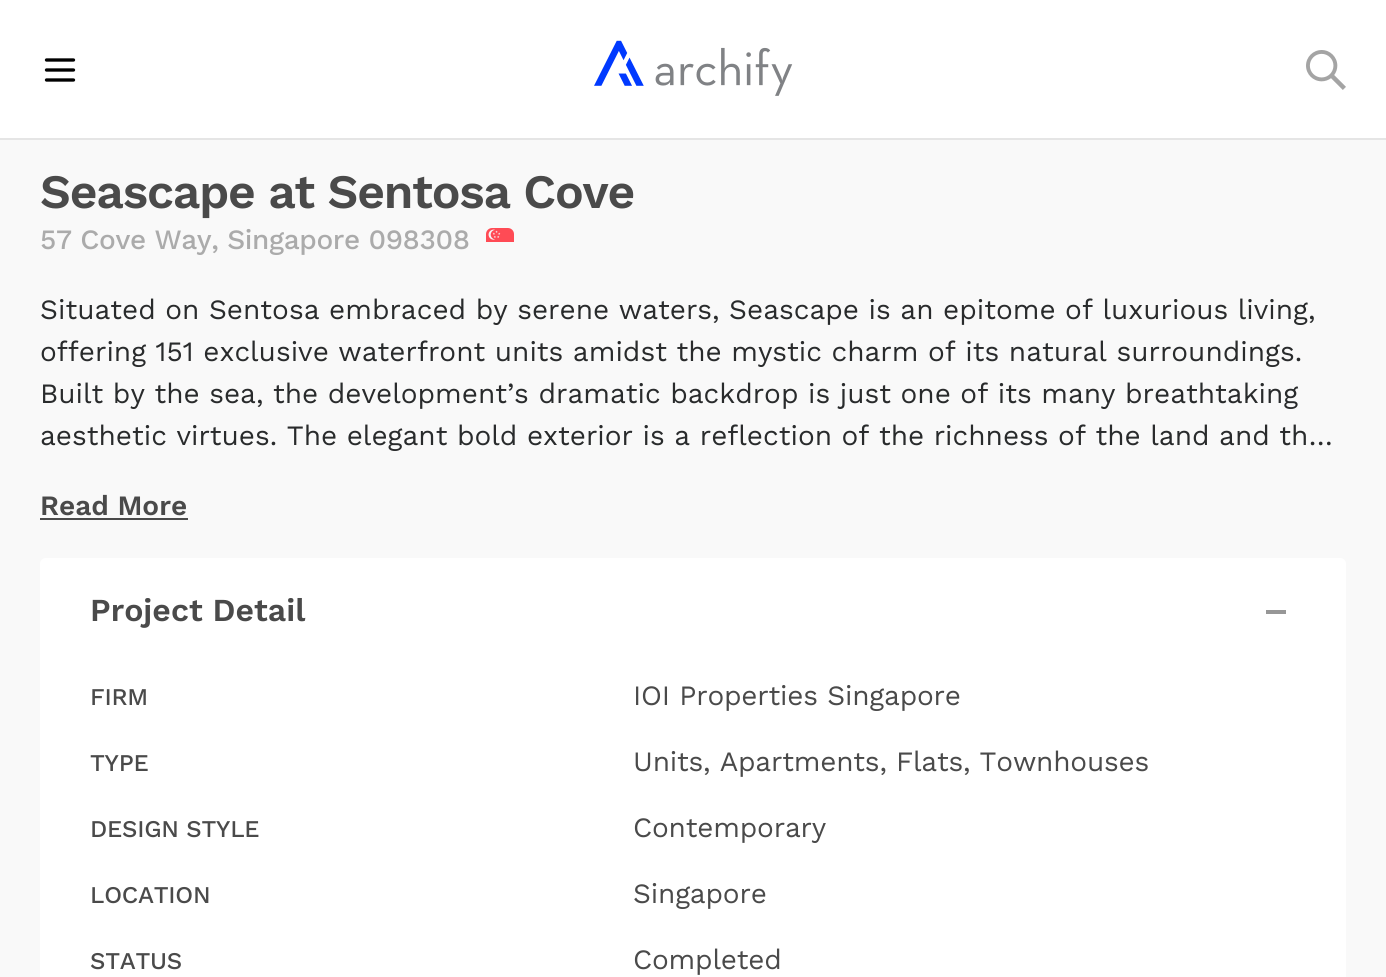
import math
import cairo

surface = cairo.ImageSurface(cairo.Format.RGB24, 1386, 977)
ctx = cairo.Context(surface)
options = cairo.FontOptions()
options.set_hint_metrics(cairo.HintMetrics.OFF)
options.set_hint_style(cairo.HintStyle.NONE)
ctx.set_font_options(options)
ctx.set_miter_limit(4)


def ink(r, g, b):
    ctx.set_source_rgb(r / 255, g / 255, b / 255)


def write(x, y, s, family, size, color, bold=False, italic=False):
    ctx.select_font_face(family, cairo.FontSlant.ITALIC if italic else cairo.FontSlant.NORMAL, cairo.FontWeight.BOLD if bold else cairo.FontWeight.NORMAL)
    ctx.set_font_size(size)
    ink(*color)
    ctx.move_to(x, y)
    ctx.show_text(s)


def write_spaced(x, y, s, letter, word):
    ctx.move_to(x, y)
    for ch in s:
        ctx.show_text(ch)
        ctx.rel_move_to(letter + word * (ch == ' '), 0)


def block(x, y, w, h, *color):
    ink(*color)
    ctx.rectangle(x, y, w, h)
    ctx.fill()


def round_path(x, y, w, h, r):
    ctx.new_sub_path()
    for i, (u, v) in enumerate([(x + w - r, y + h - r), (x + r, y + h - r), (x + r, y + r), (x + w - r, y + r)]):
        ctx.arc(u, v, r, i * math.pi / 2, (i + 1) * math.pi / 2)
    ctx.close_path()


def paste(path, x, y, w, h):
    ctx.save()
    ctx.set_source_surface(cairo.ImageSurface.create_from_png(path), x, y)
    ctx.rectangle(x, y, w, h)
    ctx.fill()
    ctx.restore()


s1 = dict(family="Work Sans", size=28, color=(41, 43, 44))
s2 = dict(family="Work Sans SemiBold", size=28, color=(74, 74, 74))
s3 = dict(family="Work Sans SemiBold", size=32, color=(74, 74, 74))

ink(249, 249, 249)
ctx.paint()
block(0, 0, 1386, 138, 255, 255, 255)
block(0, 138, 1386, 2, 229, 229, 229)
ctx.new_path()
ctx.move_to(46.5, 80)
ctx.line_to(73.5, 80)
ctx.move_to(46.5, 70)
ctx.line_to(73.5, 70)
ctx.move_to(46.5, 60)
ctx.line_to(73.5, 60)
ink(0, 0, 0)
ctx.set_line_width(3.3)
ctx.set_line_cap(cairo.LineCap.ROUND)
ctx.stroke()
paste("pic1.png", 594, 40, 199, 56)
paste("pic2.png", 1306, 50, 40, 40)
ctx.select_font_face("Work Sans SemiBold")
ctx.set_font_size(48)
ink(74, 74, 74)
write_spaced(40, 208, "Seascape at Sentosa Cove", -1.2, 0)
ctx.select_font_face("Work Sans Medium")
ctx.set_font_size(28)
ink(171, 171, 171)
write_spaced(40, 249, "57 Cove Way, Singapore 098308", -0.4, 0)
paste("pic3.png", 486, 228, 28, 14)
write(40, 319, "Situated on Sentosa embraced by serene waters, Seascape is an epitome of luxurious living,", **s1)
write(40, 361, "offering 151 exclusive waterfront units amidst the mystic charm of its natural surroundings.", **s1)
write(40, 403, "Built by the sea, the development’s dramatic backdrop is just one of its many breathtaking", **s1)
write(40, 445, "aesthetic virtues. The elegant bold exterior is a reflection of the richness of the land and th…", **s1)
write(40, 515, "Read More", **s2)
block(40, 518, 148, 2, 74, 74, 74)
ink(255, 255, 255)
round_path(40, 558, 1306, 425, 6)
ctx.fill()
write(90, 621, "Project Detail", **s3)
ctx.new_path()
ctx.move_to(1267, 611)
ctx.line_to(1285, 611)
ctx.line_to(1285, 613)
ctx.line_to(1267, 613)
ctx.close_path()
ink(151, 151, 151)
ctx.set_line_width(2)
ctx.set_line_cap(cairo.LineCap.BUTT)
ctx.stroke()
ctx.select_font_face("Work Sans Medium")
ctx.set_font_size(24)
ink(74, 74, 74)
write_spaced(90, 705, "FIRM", -0.25, 0)
ctx.select_font_face("Work Sans")
ctx.set_font_size(28)
write_spaced(633, 705, "IOI Properties Singapore", -0.2, 0)
ctx.select_font_face("Work Sans Medium")
ctx.set_font_size(24)
write_spaced(90, 771, "TYPE", -0.25, 0)
ctx.select_font_face("Work Sans")
ctx.set_font_size(28)
write_spaced(633, 771, "Units, Apartments, Flats, Townhouses", -0.2, 0)
ctx.select_font_face("Work Sans Medium")
ctx.set_font_size(24)
write_spaced(90, 837, "DESIGN STYLE", -0.25, 0)
ctx.select_font_face("Work Sans")
ctx.set_font_size(28)
write_spaced(633, 837, "Contemporary", -0.2, 0)
ctx.select_font_face("Work Sans Medium")
ctx.set_font_size(24)
write_spaced(90, 903, "LOCATION", -0.25, 0)
ctx.select_font_face("Work Sans")
ctx.set_font_size(28)
write_spaced(633, 903, "Singapore", -0.2, 0)
ctx.select_font_face("Work Sans Medium")
ctx.set_font_size(24)
write_spaced(90, 969, "STATUS", -0.25, 0)
ctx.select_font_face("Work Sans")
ctx.set_font_size(28)
write_spaced(633, 969, "Completed", -0.2, 0)
surface.write_to_png("screenshot.png")
